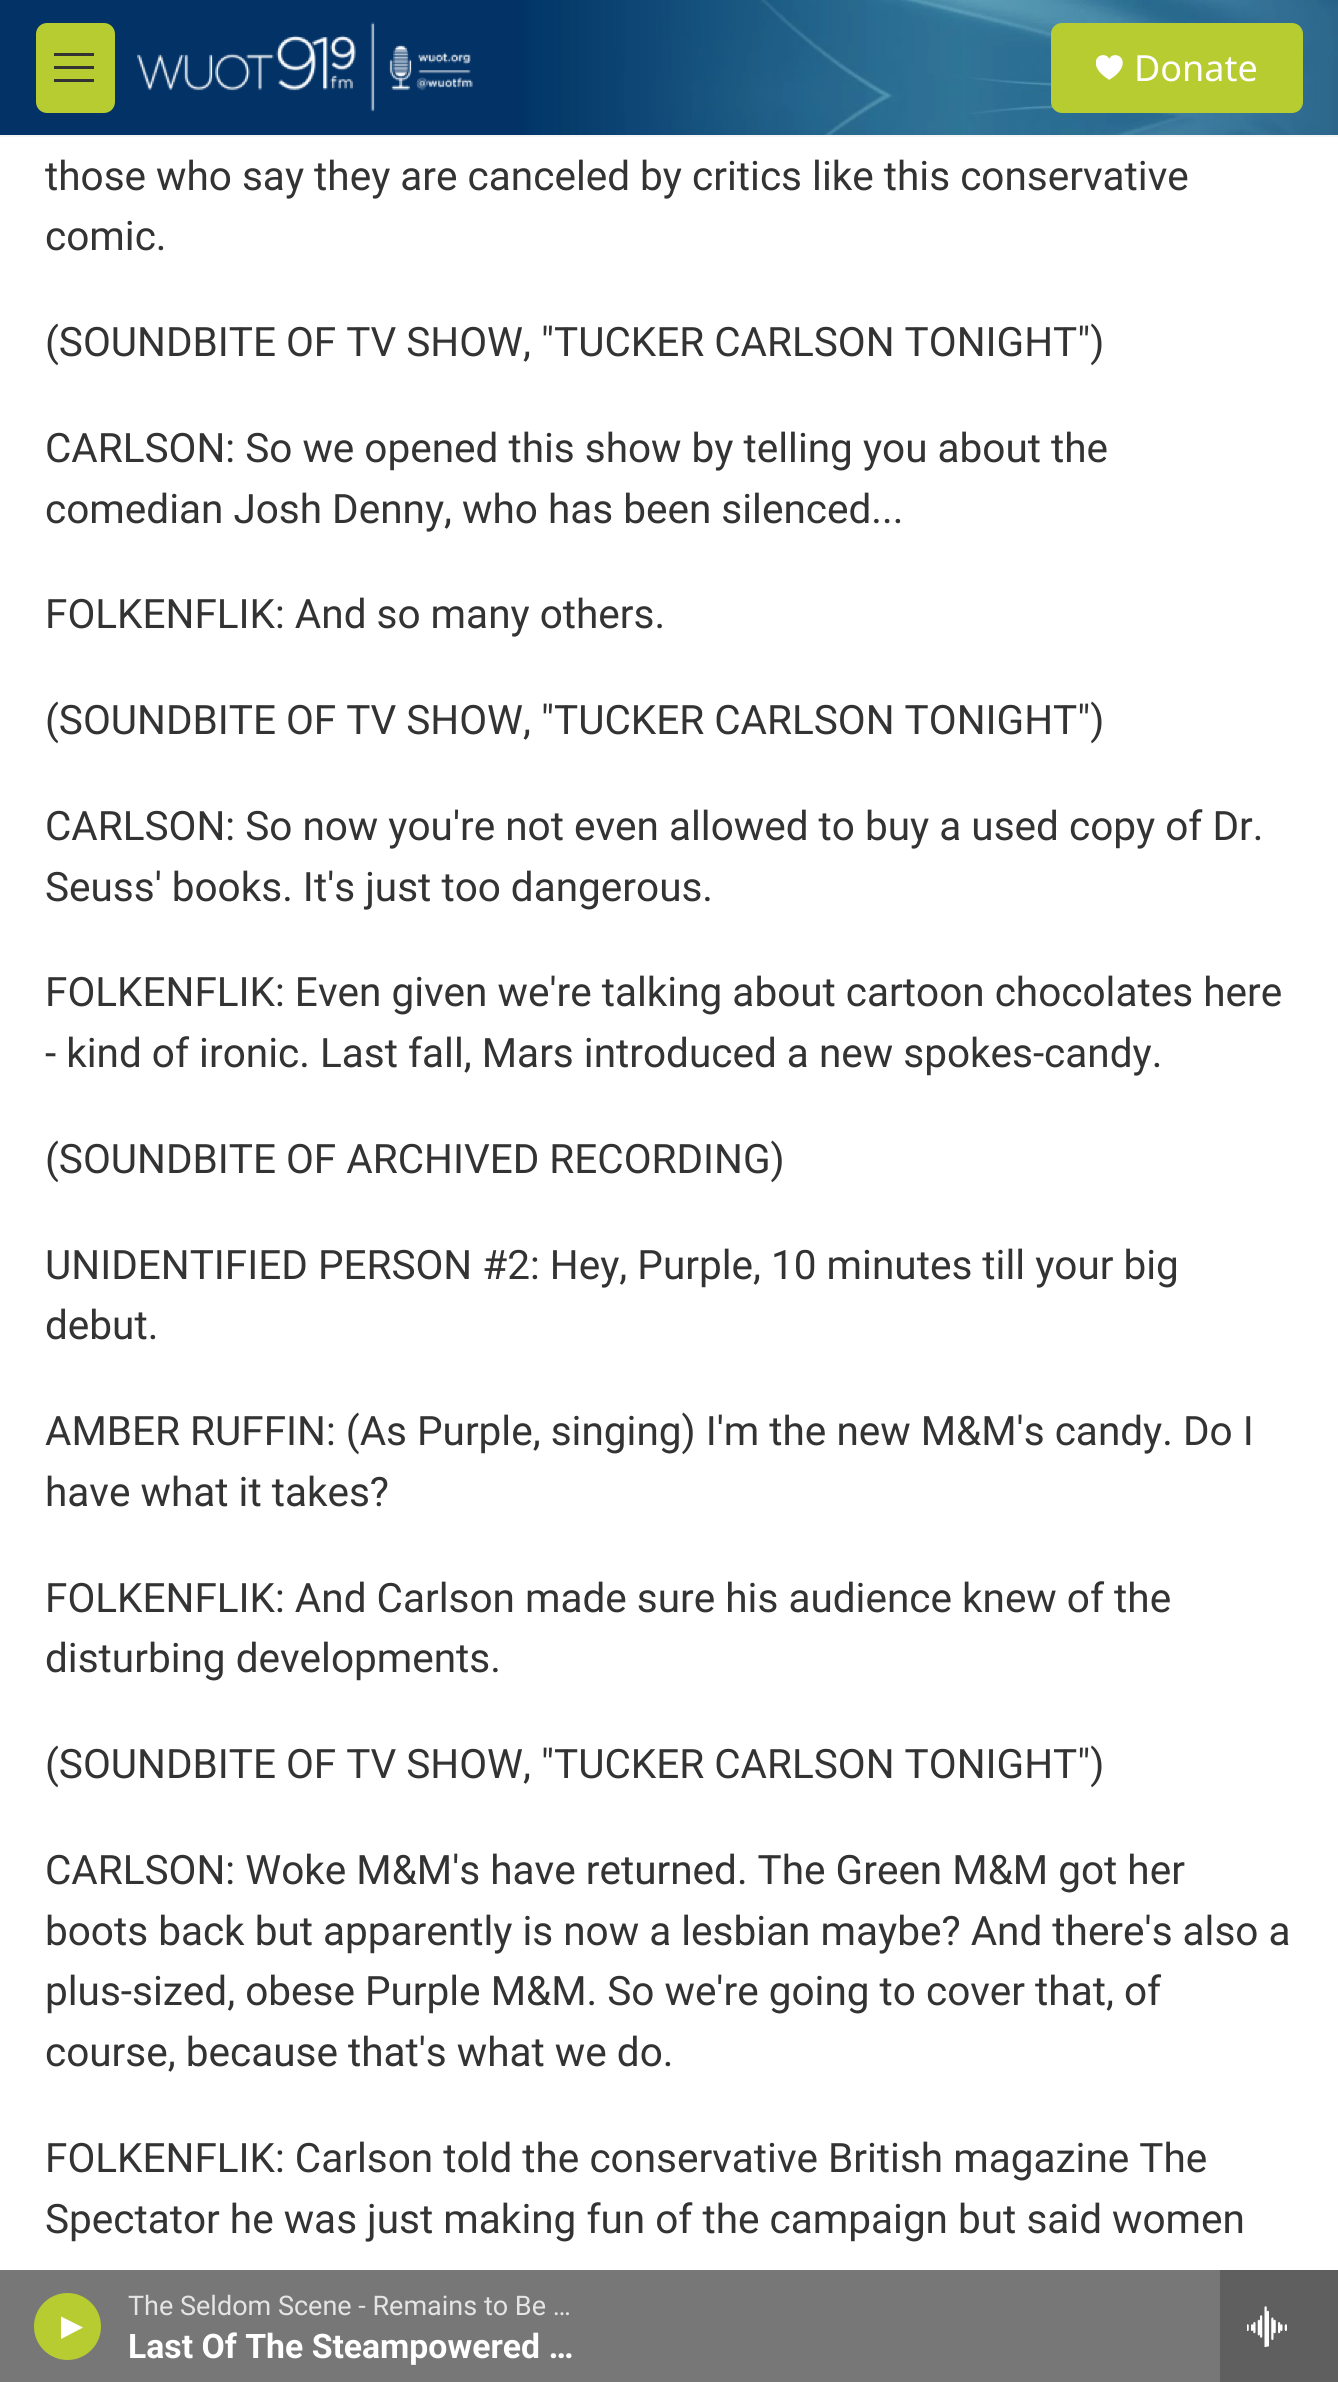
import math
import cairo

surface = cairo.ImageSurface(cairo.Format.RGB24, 1338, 2382)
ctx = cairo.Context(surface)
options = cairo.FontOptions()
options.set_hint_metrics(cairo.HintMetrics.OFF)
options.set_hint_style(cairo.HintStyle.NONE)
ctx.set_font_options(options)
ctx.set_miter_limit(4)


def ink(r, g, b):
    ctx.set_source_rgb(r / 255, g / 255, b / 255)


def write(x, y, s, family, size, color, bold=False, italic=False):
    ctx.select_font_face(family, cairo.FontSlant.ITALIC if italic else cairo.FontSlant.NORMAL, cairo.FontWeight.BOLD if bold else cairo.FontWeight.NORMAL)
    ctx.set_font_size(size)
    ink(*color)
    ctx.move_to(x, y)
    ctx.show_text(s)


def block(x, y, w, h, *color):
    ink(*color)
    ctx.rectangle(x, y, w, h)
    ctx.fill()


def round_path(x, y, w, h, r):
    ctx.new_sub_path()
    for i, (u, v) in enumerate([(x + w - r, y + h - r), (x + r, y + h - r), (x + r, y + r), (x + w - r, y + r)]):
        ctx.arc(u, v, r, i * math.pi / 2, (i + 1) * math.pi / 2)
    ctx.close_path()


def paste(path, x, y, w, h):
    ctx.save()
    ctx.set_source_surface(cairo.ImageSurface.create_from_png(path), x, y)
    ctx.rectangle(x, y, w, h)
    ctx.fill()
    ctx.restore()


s1 = dict(family="Noto Sans", size=36, color=(255, 255, 255))
s2 = dict(family="Roboto", size=27, color=(228, 228, 228))
s3 = dict(family="Roboto", size=33.75, color=(255, 255, 255), bold=True)
s4 = dict(family="Roboto", size=40.5, color=(51, 51, 51))

ink(255, 255, 255)
ctx.paint()
block(0, 135, 1338, 2, 245, 245, 245)
paste("pic1.png", 0, 0, 1338, 135)
ink(183, 204, 49)
round_path(36, 23, 79, 90, 11)
ctx.fill()
ink(51, 51, 51)
ctx.set_fill_rule(cairo.FillRule.EVEN_ODD)
ctx.new_path()
ctx.move_to(54, 69)
ctx.line_to(54, 66)
ctx.line_to(94, 66)
ctx.line_to(94, 69)
ctx.close_path()
ctx.move_to(54, 56)
ctx.line_to(54, 53)
ctx.line_to(94, 53)
ctx.line_to(94, 56)
ctx.close_path()
ctx.move_to(54, 82)
ctx.line_to(54, 79)
ctx.line_to(94, 79)
ctx.line_to(94, 82)
ctx.close_path()
ctx.fill()
paste("pic2.png", 137, 22, 336, 90)
ink(183, 204, 49)
round_path(1051, 23, 252, 90, 11)
ctx.fill()
paste("pic3.png", 1096, 55, 27, 25)
write(1134, 81, "Donate", **s1)
block(0, 2270, 1220, 112, 119, 119, 119)
ink(183, 204, 49)
ctx.new_path()
ctx.arc(67.5, 2326.5, 33.5, 0, 2 * math.pi)
ctx.fill()
ink(255, 255, 255)
ctx.set_fill_rule(cairo.FillRule.WINDING)
ctx.new_path()
ctx.move_to(61, 2316.5)
ctx.line_to(83, 2327.5)
ctx.line_to(61, 2339)
ctx.close_path()
ctx.fill()
write(128, 2315, "The Seldom Scene - Remains to Be …", **s2)
write(128, 2358, "Last Of The Steampowered …", **s3)
block(1220, 2270, 118, 112, 95, 95, 95)
paste("pic4.png", 1247, 2306, 40, 41)
write(45, 190, "those who say they are canceled by critics like this conservative", **s4)
write(45, 250, "comic.", **s4)
write(45, 356, "(SOUNDBITE OF TV SHOW, \"TUCKER CARLSON TONIGHT\")", **s4)
write(45, 462, "CARLSON: So we opened this show by telling you about the", **s4)
write(45, 523, "comedian Josh Denny, who has been silenced...", **s4)
write(45, 628, "FOLKENFLIK: And so many others.", **s4)
write(45, 734, "(SOUNDBITE OF TV SHOW, \"TUCKER CARLSON TONIGHT\")", **s4)
write(45, 840, "CARLSON: So now you're not even allowed to buy a used copy of Dr.", **s4)
write(45, 901, "Seuss' books. It's just too dangerous.", **s4)
write(45, 1006, "FOLKENFLIK: Even given we're talking about cartoon chocolates here", **s4)
write(45, 1067, "- kind of ironic. Last fall, Mars introduced a new spokes-candy.", **s4)
write(45, 1173, "(SOUNDBITE OF ARCHIVED RECORDING)", **s4)
write(45, 1279, "UNIDENTIFIED PERSON #2: Hey, Purple, 10 minutes till your big", **s4)
write(45, 1339, "debut.", **s4)
write(45, 1445, "AMBER RUFFIN: (As Purple, singing) I'm the new M&M's candy. Do I", **s4)
write(45, 1506, "have what it takes?", **s4)
write(45, 1612, "FOLKENFLIK: And Carlson made sure his audience knew of the", **s4)
write(45, 1672, "disturbing developments.", **s4)
write(45, 1778, "(SOUNDBITE OF TV SHOW, \"TUCKER CARLSON TONIGHT\")", **s4)
write(45, 1884, "CARLSON: Woke M&M's have returned. The Green M&M got her", **s4)
write(45, 1945, "boots back but apparently is now a lesbian maybe? And there's also a", **s4)
write(45, 2005, "plus-sized, obese Purple M&M. So we're going to cover that, of", **s4)
write(45, 2066, "course, because that's what we do.", **s4)
write(45, 2172, "FOLKENFLIK: Carlson told the conservative British magazine The", **s4)
write(45, 2233, "Spectator he was just making fun of the campaign but said women", **s4)
surface.write_to_png("screenshot.png")
